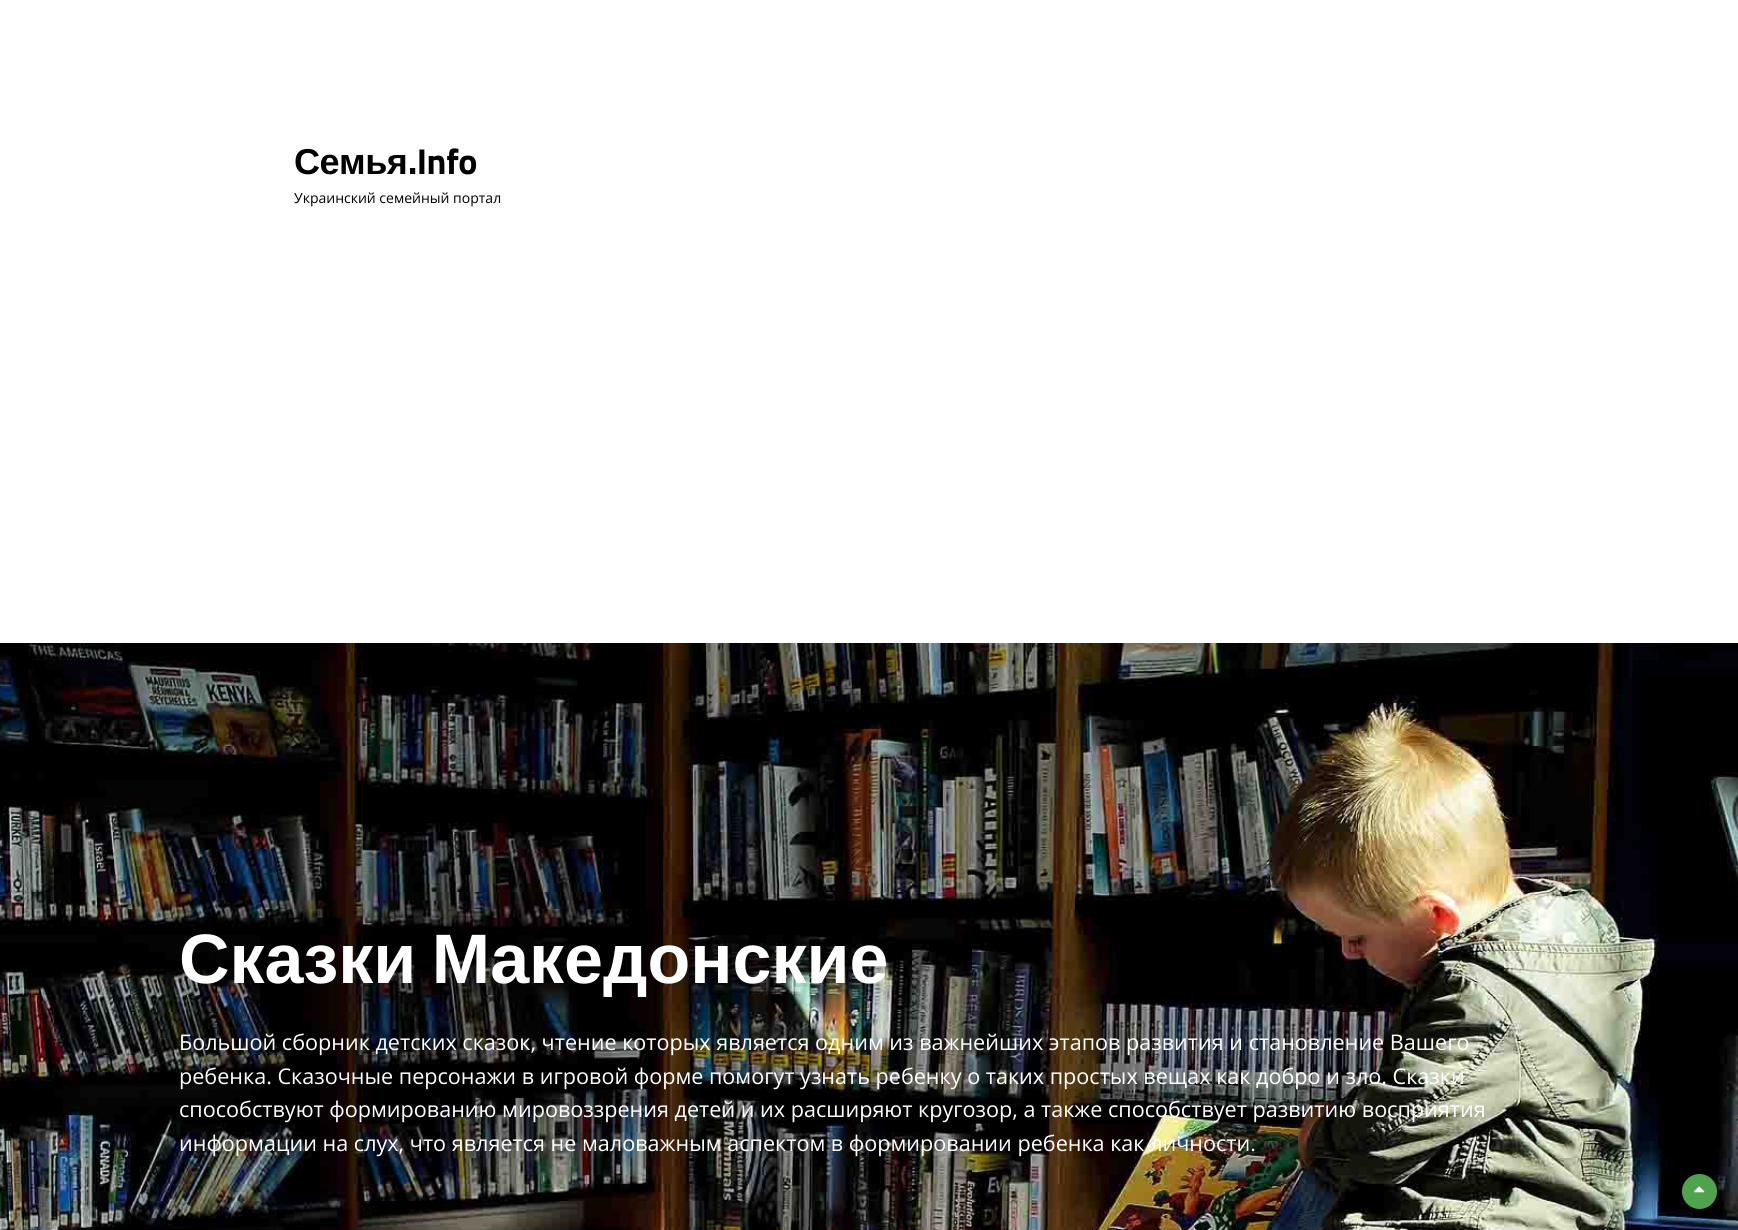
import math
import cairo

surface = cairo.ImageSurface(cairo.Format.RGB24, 1738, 1230)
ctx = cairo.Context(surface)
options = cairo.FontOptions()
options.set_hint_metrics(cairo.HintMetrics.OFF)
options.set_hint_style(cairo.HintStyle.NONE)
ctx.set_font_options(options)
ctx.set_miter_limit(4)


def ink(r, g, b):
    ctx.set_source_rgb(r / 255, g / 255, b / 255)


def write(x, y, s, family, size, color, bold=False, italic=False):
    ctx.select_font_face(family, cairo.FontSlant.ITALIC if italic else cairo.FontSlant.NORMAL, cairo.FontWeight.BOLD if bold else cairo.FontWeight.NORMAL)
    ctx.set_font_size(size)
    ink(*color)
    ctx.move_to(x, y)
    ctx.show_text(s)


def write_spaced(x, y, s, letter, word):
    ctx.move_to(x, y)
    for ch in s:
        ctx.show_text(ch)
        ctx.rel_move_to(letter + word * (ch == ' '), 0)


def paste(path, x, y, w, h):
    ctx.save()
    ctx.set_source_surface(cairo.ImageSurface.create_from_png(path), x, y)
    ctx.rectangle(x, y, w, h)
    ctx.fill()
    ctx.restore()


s1 = dict(family="Open Sans", size=14, color=(0, 0, 0))
s2 = dict(family="Open Sans", size=21.6, color=(255, 255, 255))

ink(255, 255, 255)
ctx.paint()
ctx.select_font_face("Liberation Sans", cairo.FontSlant.NORMAL, cairo.FontWeight.BOLD)
ctx.set_font_size(36)
ink(0, 0, 0)
write_spaced(294, 174, "Семья", -0.5, 0)
ctx.select_font_face("Titillium Web", cairo.FontSlant.NORMAL, cairo.FontWeight.BOLD)
write_spaced(408, 174, ".Info", -0.5, 0)
write(294, 203, "Украинский семейный портал", **s1)
paste("pic1.png", 0, 643, 1738, 587)
ctx.select_font_face("Liberation Sans", cairo.FontSlant.NORMAL, cairo.FontWeight.BOLD)
ctx.set_font_size(70)
ink(255, 255, 255)
write_spaced(179, 983, "Сказки Македонские", 0, -4)
write(179, 1050, "Большой сборник детских сказок, чтение которых является одним из важнейших этапов развития и становление Вашего", **s2)
write(179, 1084, "ребенка. Сказочные персонажи в игровой форме помогут узнать ребенку о таких простых вещах как добро и зло. Сказки", **s2)
write(179, 1117, "способствуют формированию мировоззрения детей и их расширяют кругозор, а также способствует развитию восприятия", **s2)
write(179, 1151, "информации на слух, что является не маловажным аспектом в формировании ребенка как личности.", **s2)
ink(78, 163, 76)
ctx.new_path()
ctx.arc(1699.5, 1191.5, 17.5, 0, 2 * math.pi)
ctx.fill()
paste("pic2.png", 1694, 1186, 11, 7)
surface.write_to_png("screenshot.png")
